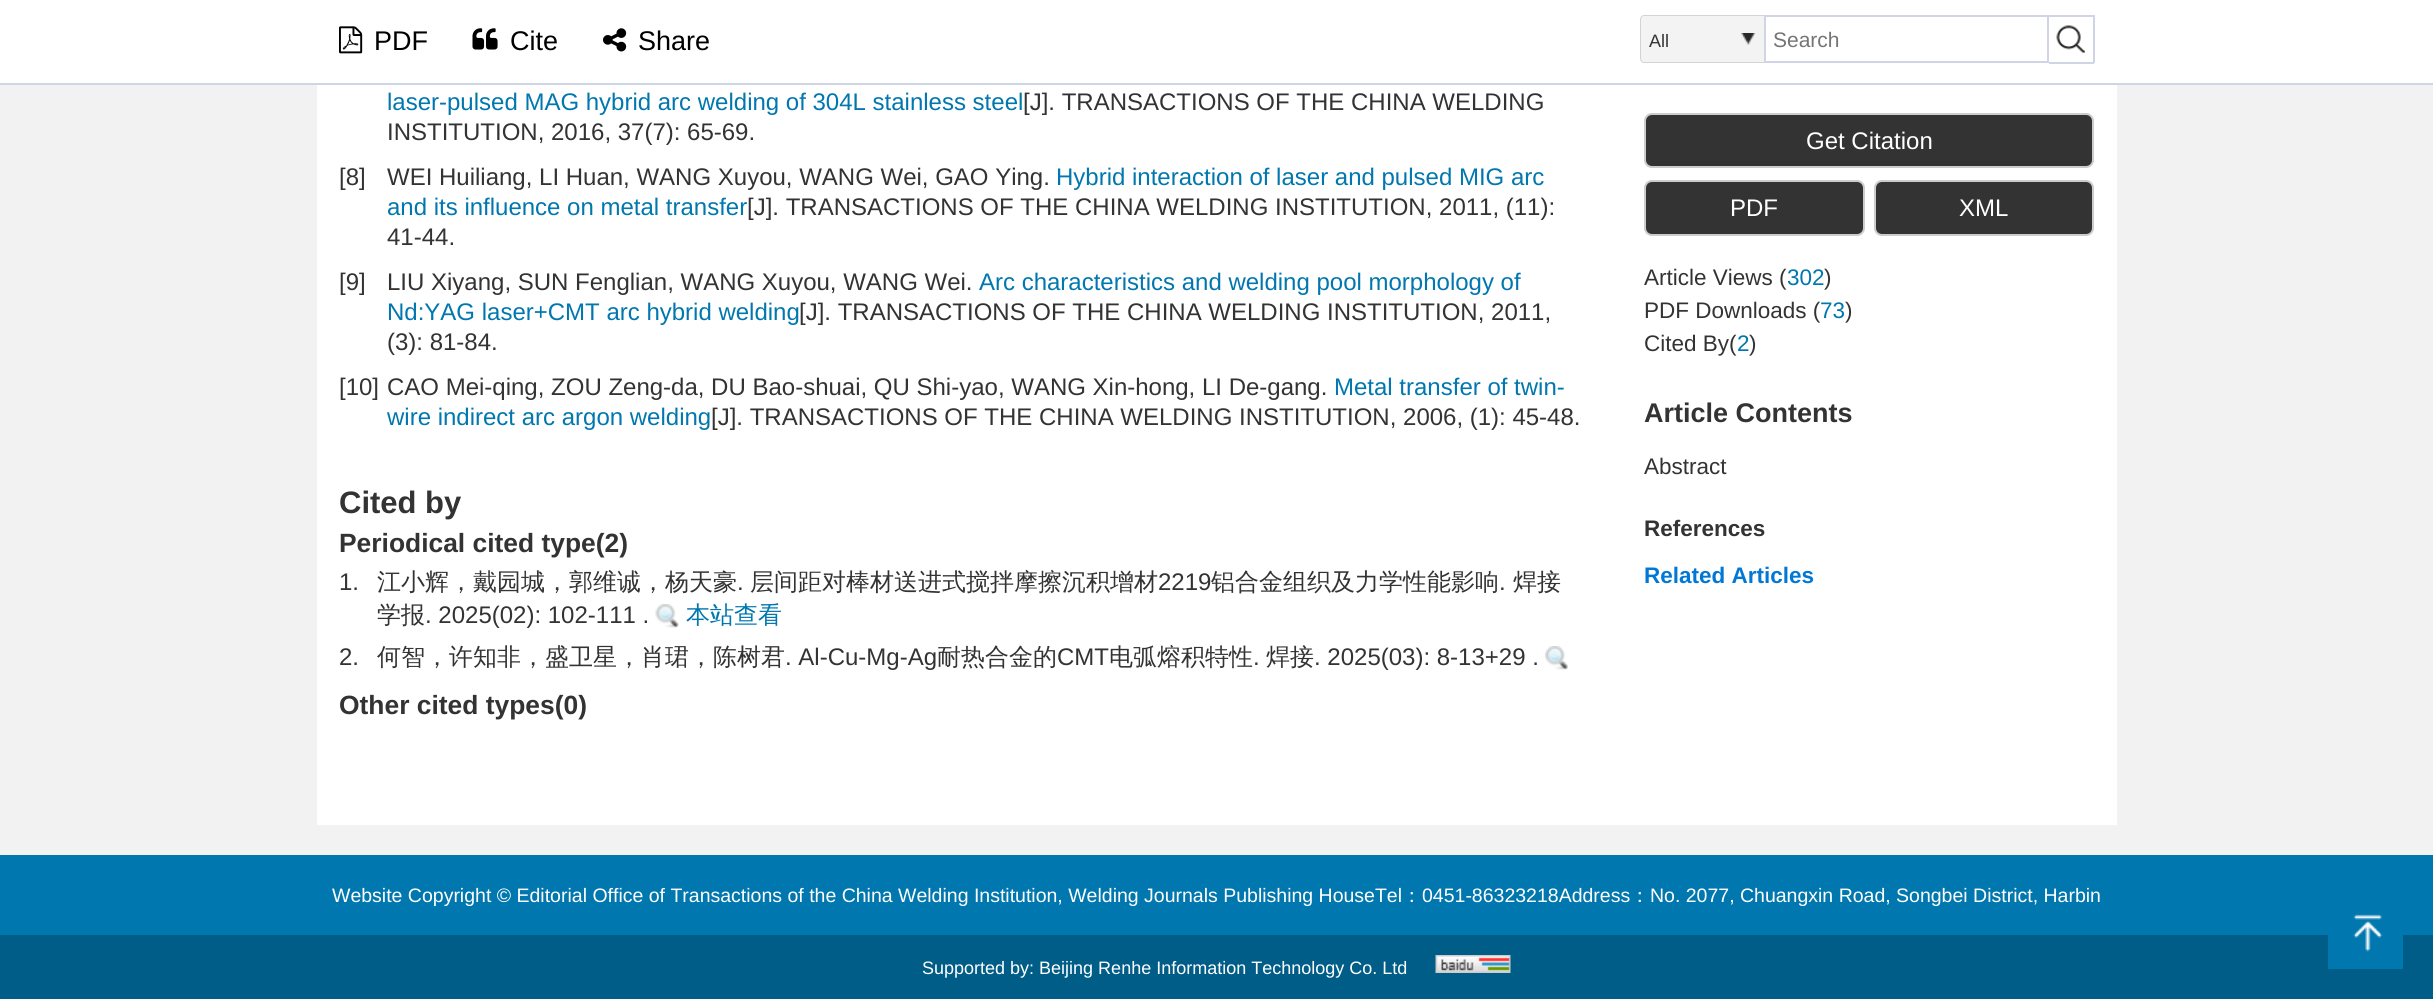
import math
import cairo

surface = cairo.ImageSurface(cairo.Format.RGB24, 2433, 999)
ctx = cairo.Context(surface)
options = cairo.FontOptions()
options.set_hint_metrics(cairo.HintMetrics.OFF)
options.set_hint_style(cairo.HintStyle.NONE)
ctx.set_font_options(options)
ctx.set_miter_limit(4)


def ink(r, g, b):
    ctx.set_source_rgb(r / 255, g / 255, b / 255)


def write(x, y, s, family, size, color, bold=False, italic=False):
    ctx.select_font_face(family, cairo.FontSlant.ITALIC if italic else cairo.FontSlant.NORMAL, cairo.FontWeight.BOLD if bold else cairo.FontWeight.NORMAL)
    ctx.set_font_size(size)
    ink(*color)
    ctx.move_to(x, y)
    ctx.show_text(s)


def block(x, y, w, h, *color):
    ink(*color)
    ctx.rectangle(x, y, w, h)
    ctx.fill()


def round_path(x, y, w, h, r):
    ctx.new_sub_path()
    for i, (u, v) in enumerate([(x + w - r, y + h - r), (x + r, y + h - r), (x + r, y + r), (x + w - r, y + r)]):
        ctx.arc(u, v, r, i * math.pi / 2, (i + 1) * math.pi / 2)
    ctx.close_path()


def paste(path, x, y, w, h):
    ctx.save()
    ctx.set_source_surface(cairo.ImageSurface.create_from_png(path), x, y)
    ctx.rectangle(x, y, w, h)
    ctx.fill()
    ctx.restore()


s1 = dict(family="Liberation Sans", size=27, color=(0, 0, 0))
s2 = dict(family="Liberation Sans", size=18, color=(51, 51, 51))
s3 = dict(family="Liberation Sans", size=21, color=(117, 117, 117))
s4 = dict(family="Liberation Sans", size=24, color=(0, 119, 174))
s5 = dict(family="Liberation Sans", size=24, color=(51, 51, 51))
s6 = dict(family="Liberation Sans", size=31, color=(51, 51, 51), bold=True)
s7 = dict(family="Liberation Sans", size=26.4, color=(51, 51, 51), bold=True)
s8 = dict(family="WenQuanYi Zen Hei Medium", size=24, color=(51, 51, 51))
s9 = dict(family="WenQuanYi Zen Hei Medium", size=24, color=(0, 119, 174))
s10 = dict(family="Liberation Sans", size=24, color=(255, 255, 255))
s11 = dict(family="Liberation Sans", size=22.5, color=(51, 51, 51))
s12 = dict(family="Liberation Sans", size=22.5, color=(0, 119, 174))
s13 = dict(family="Liberation Sans", size=27, color=(51, 51, 51), bold=True)
s14 = dict(family="Liberation Sans", size=22.5, color=(51, 51, 51), bold=True)
s15 = dict(family="Liberation Sans", size=22.5, color=(1, 120, 214), bold=True)
s16 = dict(family="Liberation Sans", size=19.5, color=(255, 255, 255))
s17 = dict(family="WenQuanYi Zen Hei Medium", size=19.5, color=(255, 255, 255))
s18 = dict(family="Liberation Sans", size=18, color=(255, 255, 255))

ink(242, 242, 242)
ctx.paint()
block(0, 0, 2433, 83, 255, 255, 255)
block(0, 83, 2433, 2, 207, 213, 228)
paste("pic1.png", 339, 26, 24, 28)
write(374, 50, "PDF", **s1)
paste("pic2.png", 472, 28, 26, 22)
write(510, 50, "Cite", **s1)
paste("pic3.png", 603, 28, 24, 24)
write(638, 50, "Share", **s1)
ink(243, 243, 243)
ctx.new_path()
ctx.move_to(1645, 15)
ctx.line_to(1764, 15)
ctx.line_to(1764, 63)
ctx.line_to(1645, 63)
ctx.curve_to(1642, 63, 1640, 61, 1640, 58)
ctx.line_to(1640, 20)
ctx.curve_to(1640, 17, 1642, 15, 1645, 15)
ctx.close_path()
ctx.fill()
paste("pic4.png", 1741, 33, 15, 12)
ink(211, 211, 211)
ctx.set_fill_rule(cairo.FillRule.EVEN_ODD)
ctx.new_path()
ctx.move_to(1644, 15)
ctx.line_to(1764, 15)
ctx.line_to(1764, 63)
ctx.line_to(1644, 63)
ctx.curve_to(1642, 63, 1640, 61, 1640, 58)
ctx.line_to(1640, 20)
ctx.curve_to(1640, 17, 1642, 15, 1644, 15)
ctx.close_path()
ctx.move_to(1644, 16)
ctx.line_to(1764, 16)
ctx.line_to(1764, 62)
ctx.line_to(1644, 62)
ctx.curve_to(1642, 62, 1641, 60, 1641, 58)
ctx.line_to(1641, 20)
ctx.curve_to(1641, 18, 1642, 16, 1644, 16)
ctx.close_path()
ctx.fill()
write(1649, 47, "All", **s2)
ctx.rectangle(1765, 16, 283, 46)
ink(207, 213, 228)
ctx.stroke()
write(1773, 47, "Search", **s3)
paste("pic5.png", 2056, 25, 29, 28)
block(2049, 15, 45, 2, 207, 213, 228)
block(2093, 15, 2, 48, 207, 213, 228)
block(2049, 62, 45, 2, 207, 213, 228)
block(317, 85, 1800, 740, 255, 255, 255)
write(387, 110, "laser-pulsed MAG hybrid arc welding of 304L stainless steel", **s4)
write(1023, 110, "[J]. TRANSACTIONS OF THE CHINA WELDING", **s5)
write(387, 140, "INSTITUTION, 2016, 37(7): 65-69.", **s5)
write(339, 185, "[8]", **s5)
write(387, 185, "WEI Huiliang, LI Huan, WANG Xuyou, WANG Wei, GAO Ying.", **s5)
write(1056, 185, "Hybrid interaction of laser and pulsed MIG arc", **s4)
write(387, 215, "and its influence on metal transfer", **s4)
write(747, 215, "[J]. TRANSACTIONS OF THE CHINA WELDING INSTITUTION, 2011, (11):", **s5)
write(387, 245, "41-44.", **s5)
write(339, 290, "[9]", **s5)
write(387, 290, "LIU Xiyang, SUN Fenglian, WANG Xuyou, WANG Wei.", **s5)
write(979, 290, "Arc characteristics and welding pool morphology of", **s4)
write(387, 320, "Nd:YAG laser+CMT arc hybrid welding", **s4)
write(799, 320, "[J]. TRANSACTIONS OF THE CHINA WELDING INSTITUTION, 2011,", **s5)
write(387, 350, "(3): 81-84.", **s5)
write(339, 395, "[10]", **s5)
write(387, 395, "CAO Mei-qing, ZOU Zeng-da, DU Bao-shuai, QU Shi-yao, WANG Xin-hong, LI De-gang.", **s5)
write(1334, 395, "Metal transfer of twin-", **s4)
write(387, 425, "wire indirect arc argon welding", **s4)
write(711, 425, "[J]. TRANSACTIONS OF THE CHINA WELDING INSTITUTION, 2006, (1): 45-48.", **s5)
write(339, 513, "Cited by", **s6)
write(339, 552, "Periodical cited type(2)", **s7)
write(339, 590, "1.", **s5)
write(377, 590, "江小辉，戴园城，郭维诚，杨天豪", **s8)
write(737, 590, ".", **s5)
write(750, 590, "层间距对棒材送进式搅拌摩擦沉积增材", **s8)
write(1158, 590, "2219", **s5)
write(1211, 590, "铝合金组织及力学性能影响", **s8)
write(1499, 590, ".", **s5)
write(1513, 590, "焊接", **s8)
write(377, 623, "学报", **s8)
write(425, 623, ". 2025(02): 102-111 .", **s5)
paste("pic6.png", 655, 604, 24, 24)
write(686, 623, "本站查看", **s9)
write(339, 665, "2.", **s5)
write(377, 665, "何智，许知非，盛卫星，肖珺，陈树君", **s8)
write(785, 665, ". Al-Cu-Mg-Ag", **s5)
write(937, 665, "耐热合金的", **s8)
write(1057, 665, "CMT", **s5)
write(1109, 665, "电弧熔积特性", **s8)
write(1253, 665, ".", **s5)
write(1266, 665, "焊接", **s8)
write(1314, 665, ". 2025(03): 8-13+29 .", **s5)
paste("pic7.png", 1545, 646, 23, 24)
write(339, 714, "Other cited types(0)", **s7)
round_path(1645, 114, 448, 53, 7)
ctx.fill_preserve()
ink(204, 204, 204)
ctx.stroke()
write(1806, 149, "Get Citation", **s10)
ink(51, 51, 51)
round_path(1645, 181, 219, 54, 7)
ctx.fill_preserve()
ink(204, 204, 204)
ctx.stroke()
write(1730, 216, "PDF", **s10)
ink(51, 51, 51)
round_path(1875, 181, 218, 54, 7)
ctx.fill_preserve()
ink(204, 204, 204)
ctx.stroke()
write(1959, 216, "XML", **s10)
write(1644, 285, "Article Views (", **s11)
write(1787, 285, "302", **s12)
write(1824, 285, ")", **s11)
write(1644, 318, "PDF Downloads (", **s11)
write(1820, 318, "73", **s12)
write(1845, 318, ")", **s11)
write(1644, 351, "Cited By(", **s11)
write(1737, 351, "2", **s12)
write(1749, 351, ")", **s11)
write(1644, 422, "Article Contents", **s13)
write(1644, 474, "Abstract", **s11)
write(1644, 536, "References", **s14)
write(1644, 583, "Related Articles", **s15)
block(0, 935, 2433, 64, 0, 93, 136)
block(0, 855, 2433, 80, 0, 119, 174)
write(332, 902, "Website Copyright © Editorial Office of Transactions of the China Welding Institution, Welding Journals Publishing HouseTel", **s16)
write(1402, 902, "：", **s17)
write(1422, 902, "0451-86323218Address", **s16)
write(1630, 902, "：", **s17)
write(1650, 902, "No. 2077, Chuangxin Road, Songbei District, Harbin", **s16)
write(922, 974, "Supported by: Beijing Renhe Information Technology Co. Ltd", **s18)
paste("pic8.png", 1435, 955, 76, 18)
block(2328, 935, 75, 34, 0, 119, 174)
paste("pic9.png", 2353, 914, 30, 38)
surface.write_to_png("screenshot.png")
